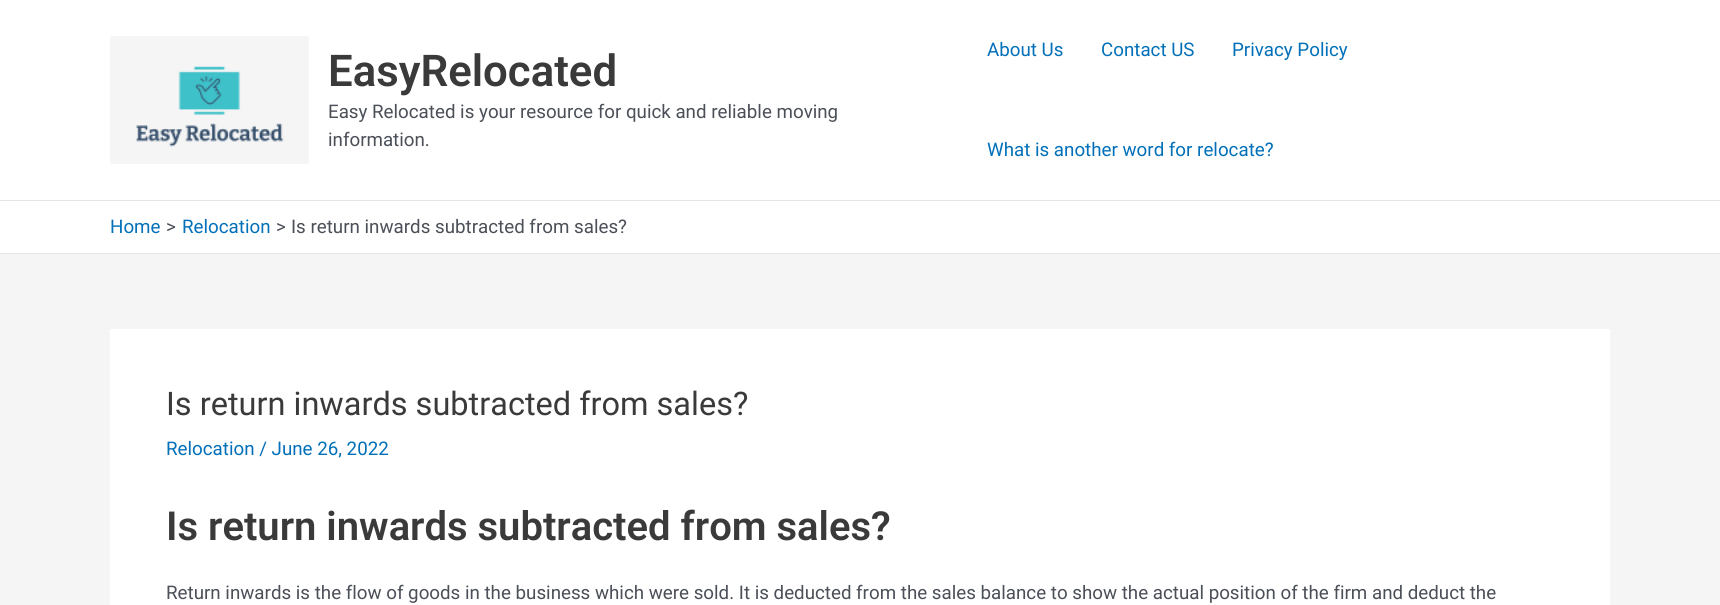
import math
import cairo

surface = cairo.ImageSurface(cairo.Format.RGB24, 1720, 605)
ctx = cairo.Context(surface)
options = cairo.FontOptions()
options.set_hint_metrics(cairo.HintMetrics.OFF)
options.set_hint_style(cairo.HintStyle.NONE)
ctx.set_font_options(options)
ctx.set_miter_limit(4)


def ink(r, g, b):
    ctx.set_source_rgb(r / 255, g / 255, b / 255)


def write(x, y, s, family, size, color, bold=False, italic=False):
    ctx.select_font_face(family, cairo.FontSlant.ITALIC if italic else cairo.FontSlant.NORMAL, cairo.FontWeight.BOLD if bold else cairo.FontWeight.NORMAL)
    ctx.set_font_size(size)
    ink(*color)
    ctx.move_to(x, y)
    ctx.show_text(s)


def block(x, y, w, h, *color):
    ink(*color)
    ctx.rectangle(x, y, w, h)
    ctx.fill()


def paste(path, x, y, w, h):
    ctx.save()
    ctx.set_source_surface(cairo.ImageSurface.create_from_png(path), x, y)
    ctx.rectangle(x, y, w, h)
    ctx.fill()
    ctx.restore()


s1 = dict(family="Roboto SemiBold", size=43.75, color=(58, 58, 58))
s2 = dict(family="Roboto", size=18.75, color=(75, 79, 88))
s3 = dict(family="Roboto", size=18.75, color=(1, 112, 185))
s4 = dict(family="Roboto", size=32.5, color=(58, 58, 58))
s5 = dict(family="Roboto SemiBold", size=40, color=(58, 58, 58))

ink(245, 245, 245)
ctx.paint()
block(0, 0, 1720, 200, 255, 255, 255)
block(0, 200, 1720, 1, 229, 229, 229)
paste("pic1.png", 110, 36, 199, 128)
write(328, 86, "EasyRelocated", **s1)
write(328, 118, "Easy Relocated is your resource for quick and reliable moving", **s2)
write(328, 146, "information.", **s2)
write(987, 56, "About Us", **s3)
write(1101, 56, "Contact US", **s3)
write(1232, 56, "Privacy Policy", **s3)
write(987, 156, "What is another word for relocate?", **s3)
block(0, 201, 1720, 52, 255, 255, 255)
block(0, 253, 1720, 1, 229, 229, 229)
write(110, 233, "Home", **s3)
write(166, 233, ">", **s2)
write(182, 233, "Relocation", **s3)
write(276, 233, ">", **s2)
write(291, 233, "Is return inwards subtracted from sales?", **s2)
block(110, 329, 1500, 276, 255, 255, 255)
write(166, 415, "Is return inwards subtracted from sales?", **s4)
write(166, 455, "Relocation / June 26, 2022", **s3)
write(166, 540, "Is return inwards subtracted from sales?", **s5)
write(166, 599, "Return inwards is the flow of goods in the business which were sold. It is deducted from the sales balance to show the actual position of the firm and deduct the", **s2)
surface.write_to_png("screenshot.png")
